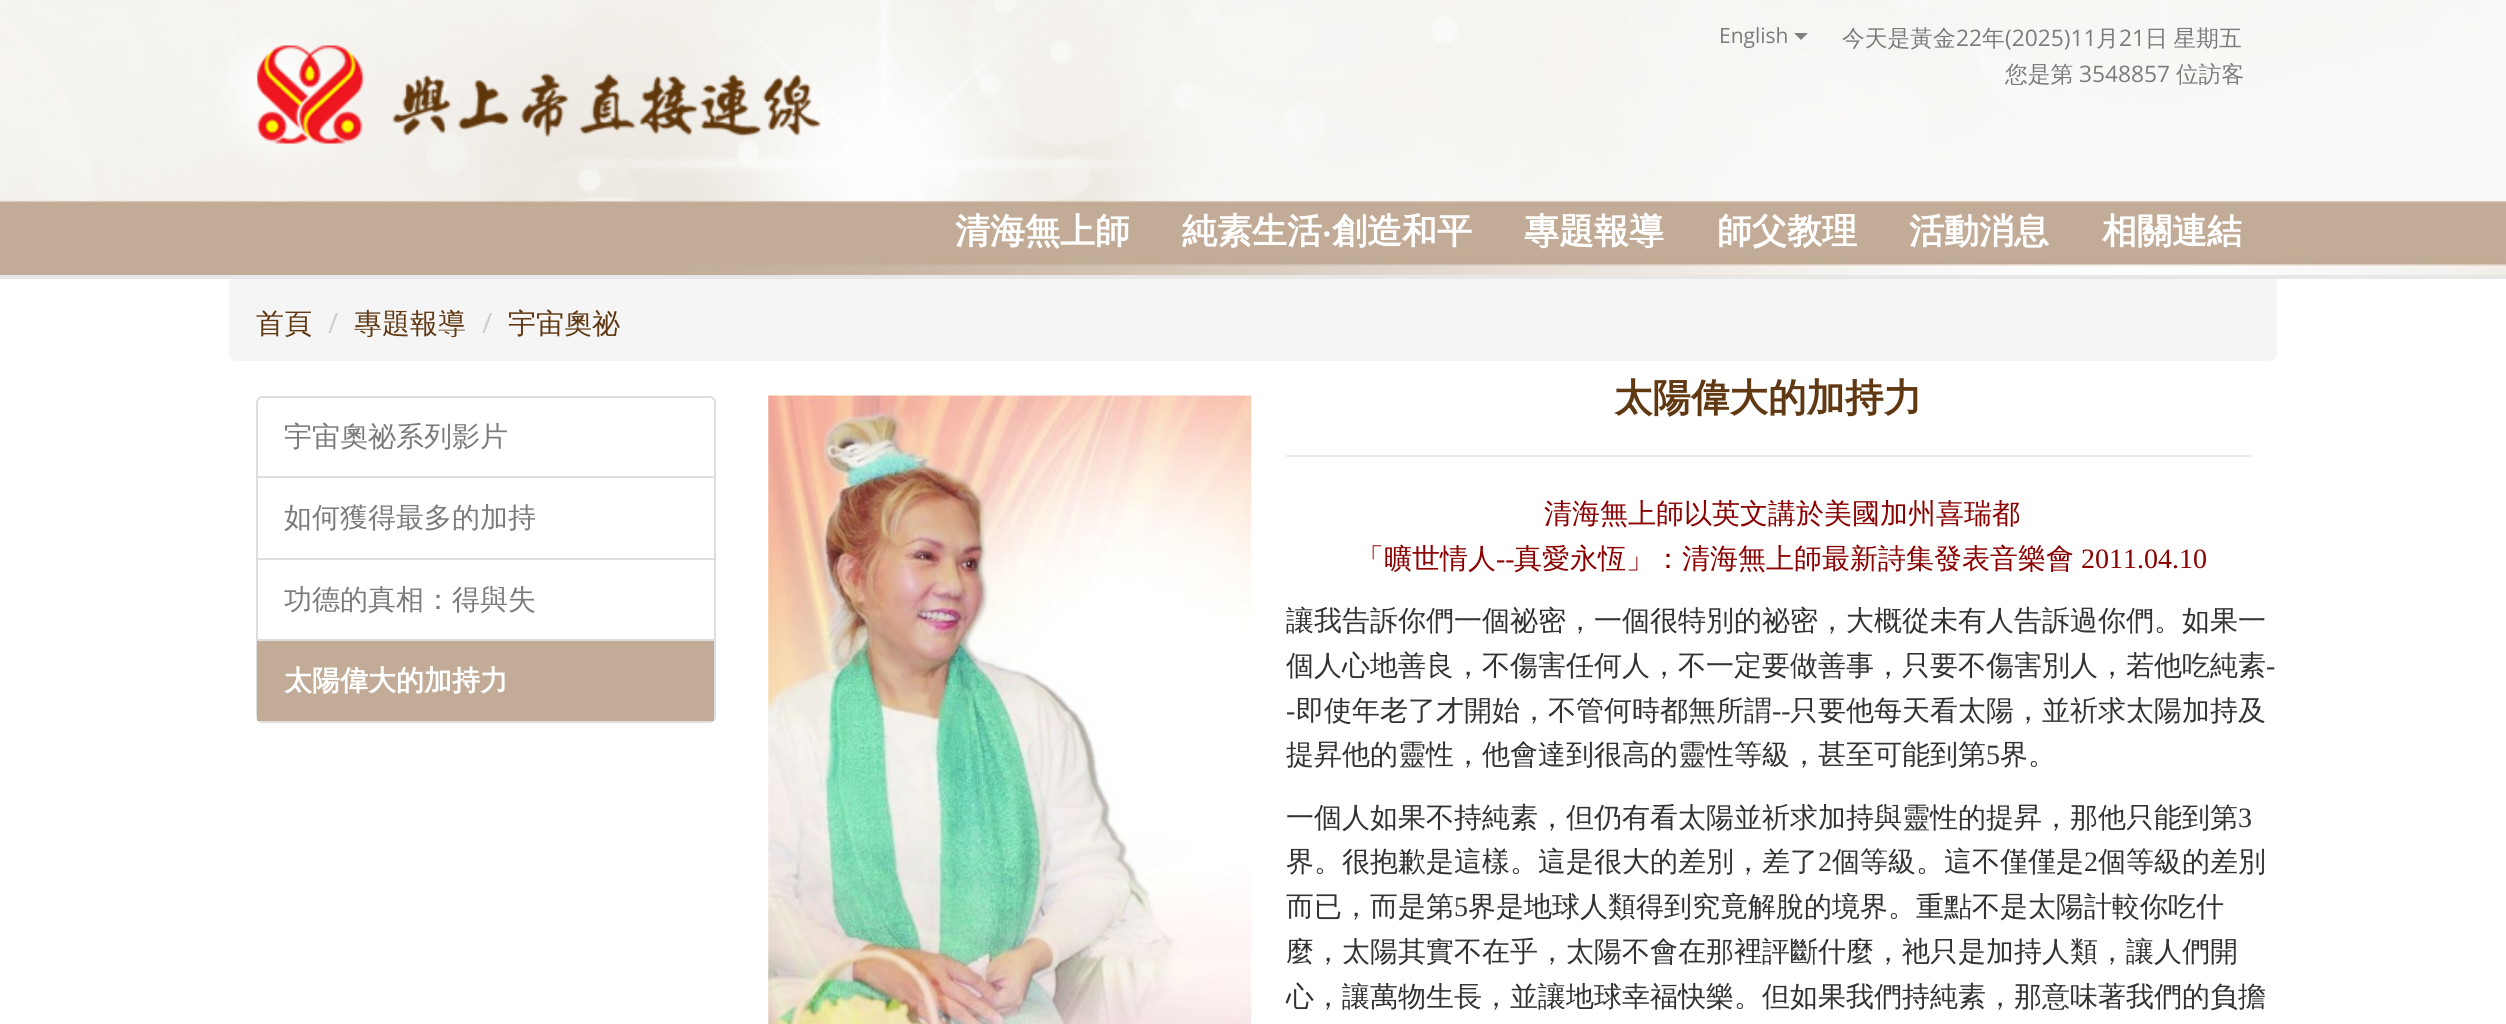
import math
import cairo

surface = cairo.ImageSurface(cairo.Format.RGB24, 2506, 1024)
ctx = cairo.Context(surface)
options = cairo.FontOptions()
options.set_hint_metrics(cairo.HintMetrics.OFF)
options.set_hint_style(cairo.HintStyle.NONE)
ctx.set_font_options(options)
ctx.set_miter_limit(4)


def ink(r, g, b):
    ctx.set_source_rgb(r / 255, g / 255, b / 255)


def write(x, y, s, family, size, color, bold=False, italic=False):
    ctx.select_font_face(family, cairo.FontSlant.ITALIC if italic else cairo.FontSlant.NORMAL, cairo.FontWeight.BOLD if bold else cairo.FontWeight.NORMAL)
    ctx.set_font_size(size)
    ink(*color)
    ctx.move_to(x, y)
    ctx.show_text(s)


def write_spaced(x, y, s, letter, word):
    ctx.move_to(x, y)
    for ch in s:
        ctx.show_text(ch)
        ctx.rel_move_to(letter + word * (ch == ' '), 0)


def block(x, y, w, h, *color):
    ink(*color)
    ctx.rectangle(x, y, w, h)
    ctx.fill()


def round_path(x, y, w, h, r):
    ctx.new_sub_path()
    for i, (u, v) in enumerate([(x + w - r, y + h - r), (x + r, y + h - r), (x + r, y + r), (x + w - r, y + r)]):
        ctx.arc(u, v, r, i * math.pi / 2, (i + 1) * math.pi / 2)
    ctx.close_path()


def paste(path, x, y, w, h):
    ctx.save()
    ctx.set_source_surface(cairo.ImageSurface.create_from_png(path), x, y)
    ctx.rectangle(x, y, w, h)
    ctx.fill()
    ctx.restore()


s1 = dict(family="Open Sans", size=21, color=(123, 123, 123))
s2 = dict(family="WenQuanYi Zen Hei Medium", size=22.75, color=(123, 123, 123))
s3 = dict(family="Open Sans", size=22.75, color=(123, 123, 123))
s4 = dict(family="WenQuanYi Zen Hei", size=35, color=(255, 255, 255), bold=True)
s5 = dict(family="Noto Sans SemiBold", size=35, color=(255, 255, 255))
s6 = dict(family="WenQuanYi Zen Hei Medium", size=28, color=(96, 57, 19))
s7 = dict(family="Open Sans", size=28, color=(204, 204, 204))
s8 = dict(family="WenQuanYi Zen Hei Medium", size=28, color=(123, 123, 123))
s9 = dict(family="WenQuanYi Zen Hei", size=28, color=(255, 255, 255), bold=True)
s10 = dict(family="WenQuanYi Zen Hei", size=38.5, color=(96, 57, 19), bold=True)
s11 = dict(family="WenQuanYi Zen Hei Medium", size=28, color=(139, 0, 0))
s12 = dict(family="Liberation Serif", size=28, color=(139, 0, 0))
s13 = dict(family="WenQuanYi Zen Hei Medium", size=28, color=(50, 50, 50))
s14 = dict(family="Liberation Serif", size=28, color=(50, 50, 50))

ink(255, 255, 255)
ctx.paint()
paste("pic1.png", 0, 0, 2506, 275)
ink(245, 245, 245)
round_path(229, 275, 2048, 86, 7)
ctx.fill()
block(0, 275, 2506, 4, 231, 231, 231)
paste("pic2.png", 256, 45, 566, 99)
write(1719, 43, "English", **s1)
ink(128, 128, 128)
ctx.new_path()
ctx.move_to(1794, 33)
ctx.line_to(1808, 33)
ctx.line_to(1801, 40)
ctx.close_path()
ctx.fill()
write(1842, 46, "今天是黃金", **s2)
write(1956, 46, "22", **s3)
write(1982, 46, "年", **s2)
write(2005, 46, "(2025)11", **s3)
write(2096, 46, "月", **s2)
write(2119, 46, "21", **s3)
ctx.select_font_face("WenQuanYi Zen Hei Medium")
write_spaced(2145, 46, "日 星期五", 0, -1)
write(2005, 82, "您是第", **s2)
write(2079, 82, "3548857", **s3)
write(2176, 82, "位訪客", **s2)
write(955, 243, "清海無上師", **s4)
write(1182, 243, "純素生活", **s4)
write(1322, 243, "‧", **s5)
write(1332, 243, "創造和平", **s4)
write(1524, 243, "專題報導", **s4)
write(1717, 243, "師父教理", **s4)
write(1909, 243, "活動消息", **s4)
write(2102, 243, "相關連結", **s4)
write(256, 333, "首頁", **s6)
write(328, 333, "/", **s7)
write(354, 333, "專題報導", **s6)
write(482, 333, "/", **s7)
write(508, 333, "宇宙奧祕", **s6)
ctx.new_path()
ctx.move_to(263, 397)
ctx.line_to(709, 397)
ctx.curve_to(712.5, 397, 715, 399.5, 715, 403)
ctx.line_to(715, 477)
ctx.line_to(257, 477)
ctx.line_to(257, 403)
ctx.curve_to(257, 399.5, 259.5, 397, 263, 397)
ctx.close_path()
ink(221, 221, 221)
ctx.stroke()
write(284, 446, "宇宙奧祕系列影片", **s8)
ctx.rectangle(257, 477, 458, 82)
ink(221, 221, 221)
ctx.stroke()
write(284, 527, "如何獲得最多的加持", **s8)
ctx.rectangle(257, 559, 458, 81)
ink(221, 221, 221)
ctx.stroke()
write(284, 609, "功德的真相：得與失", **s8)
ctx.new_path()
ctx.move_to(257, 640)
ctx.line_to(715, 640)
ctx.line_to(715, 716)
ctx.curve_to(715, 719.5, 712.5, 722, 709, 722)
ctx.line_to(263, 722)
ctx.curve_to(259.5, 722, 257, 719.5, 257, 716)
ctx.close_path()
ink(221, 221, 221)
ctx.stroke()
block(257, 641, 457, 80, 194, 172, 151)
write(284, 690, "太陽偉大的加持力", **s9)
paste("pic3.png", 768, 395, 484, 629)
write(1614, 411, "太陽偉大的加持力", **s10)
block(1286, 455, 965, 2, 234, 234, 234)
write(1544, 523, "清海無上師以英文講於美國加州喜瑞都", **s11)
write(1356, 568, "「曠世情人", **s11)
write(1496, 568, "--", **s12)
write(1514, 568, "真愛永恆」：清海無上師最新詩集發表音樂會", **s11)
write(2081, 568, "2011.04.10", **s12)
write(1286, 630, "讓我告訴你們一個祕密，一個很特別的祕密，大概從未有人告訴過你們。如果一", **s13)
write(1286, 675, "個人心地善良，不傷害任何人，不一定要做善事，只要不傷害別人，若他吃純素", **s13)
write(2266, 675, "-", **s14)
write(1286, 720, "-", **s14)
write(1296, 720, "即使年老了才開始，不管何時都無所謂", **s13)
write(1772, 720, "--", **s14)
write(1790, 720, "只要他每天看太陽，並祈求太陽加持及", **s13)
write(1286, 764, "提昇他的靈性，他會達到很高的靈性等級，甚至可能到第", **s13)
write(1986, 764, "5", **s14)
write(2000, 764, "界。", **s13)
write(1286, 827, "一個人如果不持純素，但仍有看太陽並祈求加持與靈性的提昇，那他只能到第", **s13)
write(2238, 827, "3", **s14)
write(1286, 871, "界。很抱歉是這樣。這是很大的差別，差了", **s13)
write(1818, 871, "2", **s14)
write(1832, 871, "個等級。這不僅僅是", **s13)
write(2084, 871, "2", **s14)
write(2098, 871, "個等級的差別", **s13)
write(1286, 916, "而已，而是第", **s13)
write(1454, 916, "5", **s14)
write(1468, 916, "界是地球人類得到究竟解脫的境界。重點不是太陽計較你吃什", **s13)
write(1286, 961, "麼，太陽其實不在乎，太陽不會在那裡評斷什麼，祂只是加持人類，讓人們開", **s13)
write(1286, 1006, "心，讓萬物生長，並讓地球幸福快樂。但如果我們持純素，那意味著我們的負擔", **s13)
surface.write_to_png("screenshot.png")
